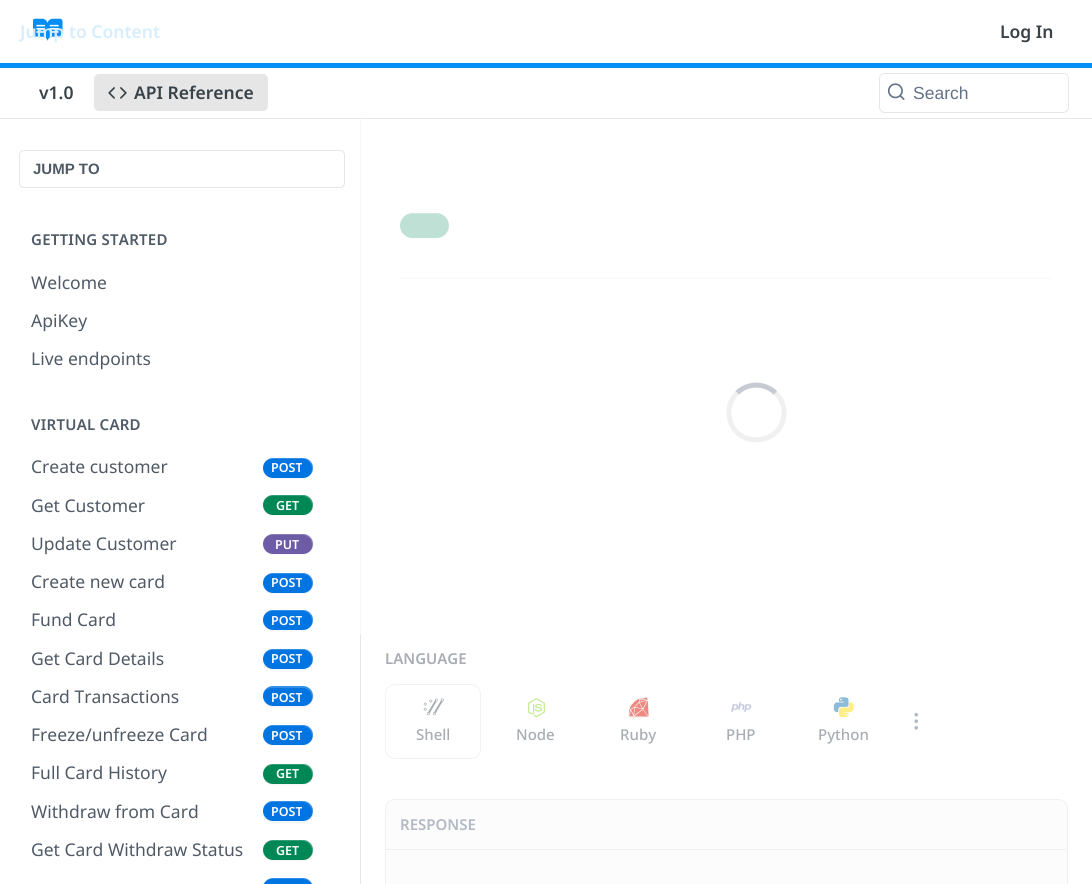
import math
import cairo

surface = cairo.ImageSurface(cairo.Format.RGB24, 1092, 884)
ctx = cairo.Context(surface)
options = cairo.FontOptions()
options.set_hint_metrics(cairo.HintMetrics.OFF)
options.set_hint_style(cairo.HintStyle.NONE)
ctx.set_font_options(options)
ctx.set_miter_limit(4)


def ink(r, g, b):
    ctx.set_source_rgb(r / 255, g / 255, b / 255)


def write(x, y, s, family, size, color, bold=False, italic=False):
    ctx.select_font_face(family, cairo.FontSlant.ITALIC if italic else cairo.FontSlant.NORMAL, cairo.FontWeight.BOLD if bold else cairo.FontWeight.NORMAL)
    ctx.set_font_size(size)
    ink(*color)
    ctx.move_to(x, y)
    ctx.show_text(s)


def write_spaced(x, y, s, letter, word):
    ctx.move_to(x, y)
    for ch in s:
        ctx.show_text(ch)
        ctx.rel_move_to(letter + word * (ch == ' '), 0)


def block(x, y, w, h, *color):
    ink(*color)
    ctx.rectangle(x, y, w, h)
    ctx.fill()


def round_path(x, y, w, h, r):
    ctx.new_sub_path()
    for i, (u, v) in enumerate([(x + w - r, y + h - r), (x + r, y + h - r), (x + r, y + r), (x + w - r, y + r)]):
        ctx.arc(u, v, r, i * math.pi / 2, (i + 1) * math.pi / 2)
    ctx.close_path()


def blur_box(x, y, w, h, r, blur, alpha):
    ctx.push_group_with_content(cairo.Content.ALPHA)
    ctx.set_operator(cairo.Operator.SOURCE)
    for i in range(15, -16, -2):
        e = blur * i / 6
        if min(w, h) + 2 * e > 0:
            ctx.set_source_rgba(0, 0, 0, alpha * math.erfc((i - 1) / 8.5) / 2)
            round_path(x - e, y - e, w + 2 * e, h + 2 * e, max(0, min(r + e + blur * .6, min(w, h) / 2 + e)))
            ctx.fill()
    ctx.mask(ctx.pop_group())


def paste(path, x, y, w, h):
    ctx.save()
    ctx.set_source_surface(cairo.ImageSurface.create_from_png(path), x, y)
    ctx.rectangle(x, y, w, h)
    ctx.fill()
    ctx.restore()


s1 = dict(family="Noto Sans SemiBold", size=17.5, color=(214, 237, 253))
s2 = dict(family="Noto Sans SemiBold", size=17.5, color=(56, 66, 72))
s3 = dict(family="Liberation Sans", size=17.5, color=(99, 114, 136))
s4 = dict(family="Liberation Sans", size=15, color=(79, 90, 102), bold=True)
s5 = dict(family="Noto Sans", size=17.5, color=(79, 90, 102))
s6 = dict(family="Noto Sans SemiBold", size=12.5, color=(255, 255, 255))
s7 = dict(family="Noto Sans SemiBold", size=15, color=(167, 173, 179))
s8 = dict(family="Noto Sans Medium", size=15, color=(167, 173, 179))
s9 = dict(family="Noto Sans SemiBold", size=15, color=(177, 185, 196))

ink(255, 255, 255)
ctx.paint()
ink(230, 230, 230)
ctx.new_path()
ctx.move_to(1, 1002)
ctx.line_to(1, 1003)
ctx.line_to(361, 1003)
ctx.line_to(361, 118)
ctx.line_to(360, 118)
ctx.line_to(360, 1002)
ctx.close_path()
ctx.fill()
block(400, 278, 653, 1, 230, 230, 230)
ink(0, 0, 0)
blur_box(400, 214, 49, 25, 12.5, 1, 0.05)
ink(0, 135, 86)
round_path(400, 213, 49, 25, 12.5)
ctx.fill()
ctx.set_source_rgba(1, 1, 1, 0.2)
ctx.new_path()
ctx.move_to(412, 214)
ctx.line_to(436, 214)
ctx.curve_to(443, 214, 449, 219, 449, 226)
ctx.curve_to(449, 211, 434, 213, 424, 213)
ctx.curve_to(415, 213, 400, 211, 400, 226)
ctx.curve_to(400, 219, 406, 214, 412, 214)
ctx.close_path()
ctx.fill()
ctx.set_source_rgba(1, 1, 1, 0.75)
ctx.rectangle(360, 118, 693, 516)
ctx.fill()
ctx.set_source_rgba(0, 0, 0, 0.1)
ctx.new_path()
ctx.move_to(0, 118)
ctx.line_to(0, 119)
ctx.line_to(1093, 119)
ctx.line_to(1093, 1)
ctx.line_to(1092, 1)
ctx.line_to(1092, 118)
ctx.close_path()
ctx.fill()
block(0, 63, 1092, 5, 1, 142, 245)
paste("pic1.png", 33, 18, 30, 23)
write(20, 38, "Jump to Content", **s1)
write(1000, 38, "Log In", **s2)
write(39, 99, "v1.0", **s2)
ink(230, 230, 230)
round_path(94, 74, 174, 37, 5)
ctx.fill()
paste("pic2.png", 108, 87, 19, 12)
write(134, 99, "API Reference", **s2)
round_path(879.5, 73.5, 189, 39, 5.5)
ink(230, 230, 230)
ctx.set_line_width(1)
ctx.stroke()
ink(255, 255, 255)
round_path(880, 74, 188, 37, 5)
ctx.fill()
paste("pic3.png", 887, 83, 18, 17)
write(913, 99, "Search", **s3)
round_path(19.5, 150.5, 325, 37, 4.5)
ink(230, 230, 230)
ctx.stroke()
write(33, 174, "JUMP TO", **s4)
ctx.select_font_face("Noto Sans SemiBold")
write_spaced(31, 245, "GETTING STARTED", 0.25, 0)
write(31, 289, "Welcome", **s5)
write(31, 327, "ApiKey", **s5)
write(31, 365, "Live endpoints", **s5)
ctx.select_font_face("Noto Sans SemiBold")
ctx.set_font_size(15)
write_spaced(31, 430, "VIRTUAL CARD", 0.25, 0)
write(31, 473, "Create customer", **s5)
ink(0, 0, 0)
blur_box(263, 459, 50, 20, 10, 1, 0.05)
ink(0, 116, 225)
round_path(263, 458, 50, 20, 10)
ctx.fill()
ctx.set_source_rgba(1, 1, 1, 0.2)
ctx.new_path()
ctx.move_to(272, 459)
ctx.line_to(302, 459)
ctx.curve_to(308, 459, 312, 463, 312, 469)
ctx.curve_to(312, 471, 311, 474, 309, 476)
ctx.curve_to(312, 474, 313, 471, 313, 468)
ctx.curve_to(313, 462, 309, 458, 303, 458)
ctx.line_to(273, 458)
ctx.curve_to(270, 458, 267, 459, 265, 462)
ctx.curve_to(267, 460, 270, 459, 272, 459)
ctx.close_path()
ctx.fill()
write(271, 472, "POST", **s6)
write(31, 512, "Get Customer", **s5)
ink(0, 0, 0)
blur_box(263, 496, 50, 20, 10, 1, 0.05)
ink(0, 135, 86)
round_path(263, 495, 50, 20, 10)
ctx.fill()
ctx.set_source_rgba(1, 1, 1, 0.2)
ctx.new_path()
ctx.move_to(272, 496)
ctx.line_to(302, 496)
ctx.curve_to(308, 496, 312, 501, 312, 506)
ctx.curve_to(312, 508, 312, 510, 311, 511)
ctx.curve_to(312, 510, 313, 507, 313, 505)
ctx.curve_to(313, 499, 309, 495, 303, 495)
ctx.line_to(273, 495)
ctx.curve_to(269, 495, 266, 497, 264, 500)
ctx.curve_to(266, 498, 269, 496, 272, 496)
ctx.close_path()
ctx.fill()
write(276, 510, "GET", **s6)
write(31, 550, "Update Customer", **s5)
ink(0, 0, 0)
blur_box(263, 535, 50, 20, 10, 1, 0.05)
ink(109, 91, 166)
round_path(263, 534, 50, 20, 10)
ctx.fill()
ctx.set_source_rgba(1, 1, 1, 0.2)
ctx.new_path()
ctx.move_to(272, 535)
ctx.line_to(302, 535)
ctx.curve_to(308, 535, 312, 539, 312, 545)
ctx.curve_to(312, 547, 312, 549, 311, 550)
ctx.curve_to(312, 549, 313, 546, 313, 544)
ctx.curve_to(313, 538, 309, 534, 303, 534)
ctx.line_to(273, 534)
ctx.curve_to(270, 534, 267, 535, 265, 538)
ctx.curve_to(267, 536, 270, 535, 272, 535)
ctx.close_path()
ctx.fill()
write(275, 549, "PUT", **s6)
write(31, 588, "Create new card", **s5)
ink(0, 0, 0)
blur_box(263, 574, 50, 20, 10, 1, 0.05)
ink(0, 116, 225)
round_path(263, 573, 50, 20, 10)
ctx.fill()
ctx.set_source_rgba(1, 1, 1, 0.2)
ctx.new_path()
ctx.move_to(272, 574)
ctx.line_to(302, 574)
ctx.curve_to(308, 574, 312, 578, 312, 584)
ctx.curve_to(312, 586, 311, 589, 309, 591)
ctx.curve_to(312, 589, 313, 586, 313, 583)
ctx.curve_to(313, 577, 309, 573, 303, 573)
ctx.line_to(273, 573)
ctx.curve_to(270, 573, 267, 574, 265, 577)
ctx.curve_to(267, 575, 270, 574, 272, 574)
ctx.close_path()
ctx.fill()
write(271, 587, "POST", **s6)
write(31, 626, "Fund Card", **s5)
ink(0, 0, 0)
blur_box(263, 611, 50, 20, 10, 1, 0.05)
ink(0, 116, 225)
round_path(263, 610, 50, 20, 10)
ctx.fill()
ctx.set_source_rgba(1, 1, 1, 0.2)
ctx.new_path()
ctx.move_to(272, 611)
ctx.line_to(302, 611)
ctx.curve_to(308, 611, 312, 616, 312, 621)
ctx.curve_to(312, 623, 312, 625, 311, 626)
ctx.curve_to(312, 625, 313, 622, 313, 620)
ctx.curve_to(313, 614, 309, 610, 303, 610)
ctx.line_to(273, 610)
ctx.curve_to(269, 610, 266, 612, 264, 615)
ctx.curve_to(266, 613, 269, 611, 272, 611)
ctx.close_path()
ctx.fill()
write(271, 625, "POST", **s6)
write(31, 665, "Get Card Details", **s5)
ink(0, 0, 0)
blur_box(263, 650, 50, 20, 10, 1, 0.05)
ink(0, 116, 225)
round_path(263, 649, 50, 20, 10)
ctx.fill()
ctx.set_source_rgba(1, 1, 1, 0.2)
ctx.new_path()
ctx.move_to(272, 650)
ctx.line_to(302, 650)
ctx.curve_to(308, 650, 312, 654, 312, 660)
ctx.curve_to(312, 662, 312, 664, 311, 665)
ctx.curve_to(312, 664, 313, 661, 313, 659)
ctx.curve_to(313, 653, 309, 649, 303, 649)
ctx.line_to(273, 649)
ctx.curve_to(270, 649, 267, 650, 265, 653)
ctx.curve_to(267, 651, 270, 650, 272, 650)
ctx.close_path()
ctx.fill()
write(271, 663, "POST", **s6)
write(31, 703, "Card Transactions", **s5)
ink(0, 0, 0)
blur_box(263, 688, 50, 20, 10, 1, 0.05)
ink(0, 116, 225)
round_path(263, 686, 50, 20, 10)
ctx.fill()
ctx.set_source_rgba(1, 1, 1, 0.2)
ctx.new_path()
ctx.move_to(272, 688)
ctx.line_to(302, 688)
ctx.curve_to(308, 688, 312, 692, 312, 698)
ctx.line_to(311, 702)
ctx.curve_to(312, 700, 313, 698, 313, 696)
ctx.curve_to(313, 690, 309, 686, 303, 686)
ctx.line_to(273, 686)
ctx.curve_to(269, 686, 265, 689, 264, 693)
ctx.curve_to(265, 690, 269, 688, 272, 688)
ctx.close_path()
ctx.fill()
write(271, 702, "POST", **s6)
write(31, 741, "Freeze/unfreeze Card", **s5)
ink(0, 0, 0)
blur_box(263, 726, 50, 20, 10, 1, 0.05)
ink(0, 116, 225)
round_path(263, 725, 50, 20, 10)
ctx.fill()
ctx.set_source_rgba(1, 1, 1, 0.2)
ctx.new_path()
ctx.move_to(272, 726)
ctx.line_to(302, 726)
ctx.curve_to(308, 726, 312, 731, 312, 736)
ctx.curve_to(312, 738, 312, 740, 311, 741)
ctx.curve_to(312, 740, 313, 737, 313, 735)
ctx.curve_to(313, 729, 309, 725, 303, 725)
ctx.line_to(273, 725)
ctx.curve_to(269, 725, 266, 727, 264, 730)
ctx.curve_to(266, 728, 269, 726, 272, 726)
ctx.close_path()
ctx.fill()
write(271, 740, "POST", **s6)
write(31, 779, "Full Card History", **s5)
ink(0, 0, 0)
blur_box(263, 765, 50, 20, 10, 1, 0.05)
ink(0, 135, 86)
round_path(263, 764, 50, 20, 10)
ctx.fill()
ctx.set_source_rgba(1, 1, 1, 0.2)
ctx.new_path()
ctx.move_to(272, 765)
ctx.line_to(302, 765)
ctx.curve_to(308, 765, 312, 769, 312, 775)
ctx.curve_to(312, 777, 312, 779, 311, 780)
ctx.curve_to(312, 779, 313, 776, 313, 774)
ctx.curve_to(313, 768, 309, 764, 303, 764)
ctx.line_to(273, 764)
ctx.curve_to(270, 764, 267, 765, 265, 768)
ctx.curve_to(267, 766, 270, 765, 272, 765)
ctx.close_path()
ctx.fill()
write(276, 778, "GET", **s6)
write(31, 818, "Withdraw from Card", **s5)
ink(0, 0, 0)
blur_box(263, 803, 50, 20, 10, 1, 0.05)
ink(0, 116, 225)
round_path(263, 801, 50, 20, 10)
ctx.fill()
ctx.set_source_rgba(1, 1, 1, 0.2)
ctx.new_path()
ctx.move_to(272, 802)
ctx.line_to(302, 802)
ctx.curve_to(308, 802, 312, 807, 312, 812)
ctx.curve_to(312, 814, 312, 816, 311, 817)
ctx.curve_to(312, 816, 313, 813, 313, 811)
ctx.curve_to(313, 805, 309, 801, 303, 801)
ctx.line_to(273, 801)
ctx.curve_to(269, 801, 266, 803, 264, 806)
ctx.curve_to(266, 804, 269, 802, 272, 802)
ctx.close_path()
ctx.fill()
write(271, 816, "POST", **s6)
write(31, 856, "Get Card Withdraw Status", **s5)
ink(0, 0, 0)
blur_box(263, 841, 50, 20, 10, 1, 0.05)
ink(0, 135, 86)
round_path(263, 840, 50, 20, 10)
ctx.fill()
ctx.set_source_rgba(1, 1, 1, 0.2)
ctx.new_path()
ctx.move_to(272, 841)
ctx.line_to(302, 841)
ctx.curve_to(308, 841, 312, 846, 312, 851)
ctx.curve_to(312, 853, 312, 855, 311, 856)
ctx.curve_to(312, 855, 313, 852, 313, 850)
ctx.curve_to(313, 844, 309, 840, 303, 840)
ctx.line_to(273, 840)
ctx.curve_to(269, 840, 266, 842, 264, 845)
ctx.curve_to(266, 843, 269, 841, 272, 841)
ctx.close_path()
ctx.fill()
write(276, 855, "GET", **s6)
ink(0, 116, 225)
ctx.new_path()
ctx.move_to(273, 878)
ctx.line_to(303, 878)
ctx.curve_to(308.5, 878, 313, 882.5, 313, 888)
ctx.line_to(313, 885)
ctx.line_to(263, 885)
ctx.line_to(263, 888)
ctx.curve_to(263, 882.5, 267.5, 878, 273, 878)
ctx.close_path()
ctx.fill()
ctx.set_source_rgba(1, 1, 1, 0.2)
ctx.new_path()
ctx.move_to(272, 879)
ctx.line_to(302, 879)
ctx.curve_to(308, 879, 312, 883, 312, 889)
ctx.curve_to(312, 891, 311, 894, 309, 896)
ctx.curve_to(312, 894, 313, 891, 313, 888)
ctx.curve_to(313, 882, 309, 878, 303, 878)
ctx.line_to(273, 878)
ctx.curve_to(270, 878, 267, 879, 265, 882)
ctx.curve_to(267, 880, 270, 879, 272, 879)
ctx.close_path()
ctx.fill()
ctx.new_path()
ctx.move_to(737, 393)
ctx.curve_to(747.5, 382.5, 765, 382.5, 775.5, 393)
ink(198, 203, 211)
ctx.set_line_width(5)
ctx.stroke()
ctx.new_path()
ctx.move_to(775.5, 393)
ctx.curve_to(781, 398, 784, 405.5, 784, 412.5)
ctx.curve_to(784, 445.5, 735.5, 450, 729.5, 418)
ctx.curve_to(727.5, 409, 730.5, 399.5, 737, 393)
ink(240, 240, 240)
ctx.stroke()
write(385, 664, "LANGUAGE", **s7)
paste("pic4.png", 914, 712, 5, 18)
round_path(385.5, 684.5, 95, 74, 9.5)
ink(242, 242, 242)
ctx.set_line_width(1)
ctx.stroke()
paste("pic5.png", 423, 698, 21, 18)
write(416, 740, "Shell", **s8)
paste("pic6.png", 528, 698, 17, 20)
write(516, 740, "Node", **s8)
paste("pic7.png", 628, 697, 21, 21)
write(620, 740, "Ruby", **s8)
paste("pic8.png", 731, 702, 21, 10)
write(726, 740, "PHP", **s8)
paste("pic9.png", 833, 697, 16, 16)
paste("pic10.png", 838, 702, 16, 16)
write(818, 740, "Python", **s8)
ink(252, 252, 252)
ctx.new_path()
ctx.move_to(395, 799)
ctx.line_to(1058, 799)
ctx.curve_to(1063.5, 799, 1068, 803.5, 1068, 809)
ctx.line_to(1068, 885)
ctx.line_to(385, 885)
ctx.line_to(385, 809)
ctx.curve_to(385, 803.5, 389.5, 799, 395, 799)
ctx.close_path()
ctx.fill()
round_path(385.5, 799.5, 682, 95, 9.5)
ink(240, 240, 240)
ctx.stroke()
block(386, 849, 680, 1, 240, 240, 240)
write(400, 830, "RESPONSE", **s9)
surface.write_to_png("screenshot.png")
